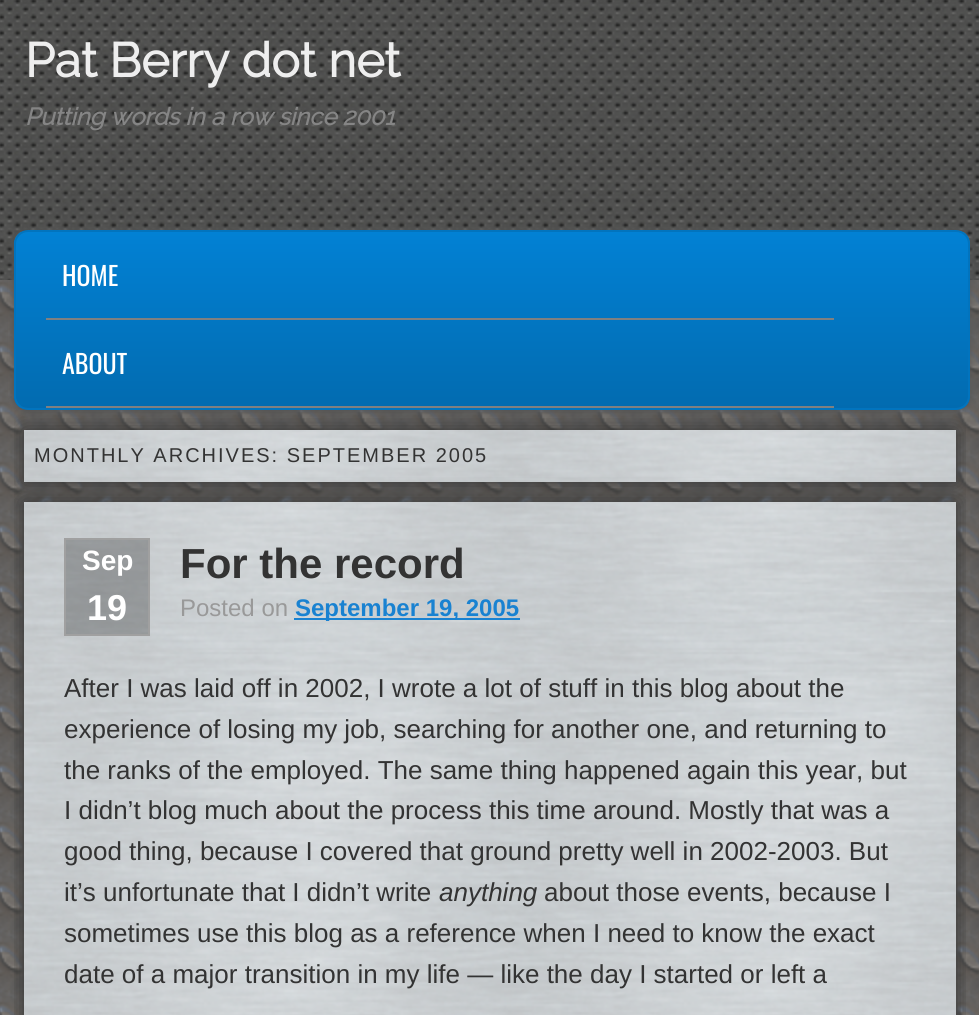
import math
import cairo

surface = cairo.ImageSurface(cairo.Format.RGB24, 979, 1015)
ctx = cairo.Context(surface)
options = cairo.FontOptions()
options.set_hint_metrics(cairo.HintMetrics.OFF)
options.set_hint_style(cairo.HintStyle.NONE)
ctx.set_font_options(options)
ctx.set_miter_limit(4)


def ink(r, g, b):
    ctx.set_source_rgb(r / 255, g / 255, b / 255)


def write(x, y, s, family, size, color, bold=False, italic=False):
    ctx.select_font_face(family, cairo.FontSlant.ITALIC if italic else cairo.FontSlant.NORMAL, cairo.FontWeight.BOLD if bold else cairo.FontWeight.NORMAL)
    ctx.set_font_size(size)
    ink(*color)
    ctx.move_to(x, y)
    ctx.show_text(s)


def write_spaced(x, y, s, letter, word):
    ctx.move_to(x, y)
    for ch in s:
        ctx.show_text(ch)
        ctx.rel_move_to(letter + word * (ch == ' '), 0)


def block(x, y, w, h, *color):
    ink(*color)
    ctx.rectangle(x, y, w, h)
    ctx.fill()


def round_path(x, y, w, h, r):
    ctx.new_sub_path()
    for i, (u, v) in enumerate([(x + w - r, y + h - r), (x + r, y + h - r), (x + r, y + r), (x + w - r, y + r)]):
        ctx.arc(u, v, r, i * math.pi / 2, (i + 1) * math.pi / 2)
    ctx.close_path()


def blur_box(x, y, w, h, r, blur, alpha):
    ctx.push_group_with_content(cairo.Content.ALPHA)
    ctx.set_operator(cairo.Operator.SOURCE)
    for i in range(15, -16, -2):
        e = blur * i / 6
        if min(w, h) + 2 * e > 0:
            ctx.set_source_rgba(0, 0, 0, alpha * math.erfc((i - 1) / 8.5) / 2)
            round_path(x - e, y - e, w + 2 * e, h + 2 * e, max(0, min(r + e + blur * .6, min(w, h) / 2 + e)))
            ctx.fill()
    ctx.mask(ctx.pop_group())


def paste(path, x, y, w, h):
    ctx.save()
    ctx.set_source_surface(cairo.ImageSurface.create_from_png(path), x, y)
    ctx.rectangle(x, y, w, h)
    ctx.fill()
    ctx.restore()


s1 = dict(family="Raleway", size=48, color=(238, 238, 238), bold=True)
s2 = dict(family="Raleway", size=24, color=(133, 133, 133), bold=True, italic=True)
s3 = dict(family="Oswald", size=26, color=(255, 255, 255))
s4 = dict(family="Liberation Sans", size=28, color=(255, 255, 255), bold=True)
s5 = dict(family="Liberation Sans", size=36, color=(255, 255, 255), bold=True)
s6 = dict(family="Liberation Sans", size=42, color=(51, 51, 51), bold=True)
s7 = dict(family="Liberation Sans", size=24, color=(153, 153, 153))
s8 = dict(family="Liberation Sans", size=24, color=(25, 130, 209), bold=True)
s9 = dict(family="Liberation Sans", size=26, color=(51, 51, 51))
s10 = dict(family="Liberation Sans", size=26, color=(51, 51, 51), italic=True)

ink(255, 255, 255)
ctx.paint()
paste("pic1.png", 0, 280, 979, 735)
paste("pic2.png", 0, 0, 979, 280)
write(25, 77, "Pat Berry dot net", **s1)
write(25, 125, "Putting words in a row since 2001", **s2)
ink(85, 85, 85)
blur_box(14, 232, 956, 180, 14, 3, 1)
ctx.save()
round_path(14, 230, 956, 180, 14)
ctx.clip()
gradient = cairo.LinearGradient(492, 232, 492, 408)
gradient.add_color_stop_rgba(0, 0.008, 0.506, 0.831, 1)
gradient.add_color_stop_rgba(1, 0.008, 0.42, 0.69, 1)
ctx.set_source(gradient)
ctx.rectangle(14, 232, 956, 176)
ctx.fill()
ctx.restore()
round_path(15, 231, 954, 178, 13)
ink(2, 116, 190)
ctx.stroke()
block(46, 318, 788, 2, 128, 128, 128)
write(62, 286, "HOME", **s3)
ctx.save()
ctx.rectangle(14, 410, 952, 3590)
ctx.clip()
ink(51, 51, 51)
blur_box(24, 430, 932, 52, 0, 10, 1)
ctx.restore()
block(46, 406, 788, 2, 128, 128, 128)
write(62, 374, "ABOUT", **s3)
paste("pic3.png", 24, 430, 932, 52)
ctx.select_font_face("Liberation Sans")
ctx.set_font_size(20)
ink(51, 51, 51)
write_spaced(34, 462, "MONTHLY ARCHIVES: SEPTEMBER 2005", 2, 0)
ctx.save()
ctx.rectangle(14, 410, 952, 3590)
ctx.clip()
ink(51, 51, 51)
blur_box(24, 502, 932, 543, 0, 10, 1)
ctx.restore()
paste("pic4.png", 24, 502, 932, 513)
ctx.set_source_rgba(0, 0, 0, 0.25)
ctx.rectangle(65, 539, 84, 96)
ctx.fill_preserve()
ink(160, 160, 160)
ctx.stroke()
write(82, 570, "Sep", **s4)
write(87, 620, "19", **s5)
write(180, 578, "For the record", **s6)
write(180, 616, "Posted on", **s7)
block(294, 618, 226, 2, 25, 130, 209)
write(295, 616, "September 19, 2005", **s8)
write(64, 697, "After I was laid off in 2002, I wrote a lot of stuff in this blog about the", **s9)
write(64, 738, "experience of losing my job, searching for another one, and returning to", **s9)
write(64, 779, "the ranks of the employed. The same thing happened again this year, but", **s9)
write(64, 819, "I didn’t blog much about the process this time around. Mostly that was a", **s9)
write(64, 860, "good thing, because I covered that ground pretty well in 2002-2003. But", **s9)
write(64, 901, "it’s unfortunate that I didn’t write", **s9)
write(439, 901, "anything", **s10)
write(544, 901, "about those events, because I", **s9)
write(64, 942, "sometimes use this blog as a reference when I need to know the exact", **s9)
write(64, 983, "date of a major transition in my life — like the day I started or left a", **s9)
surface.write_to_png("screenshot.png")
